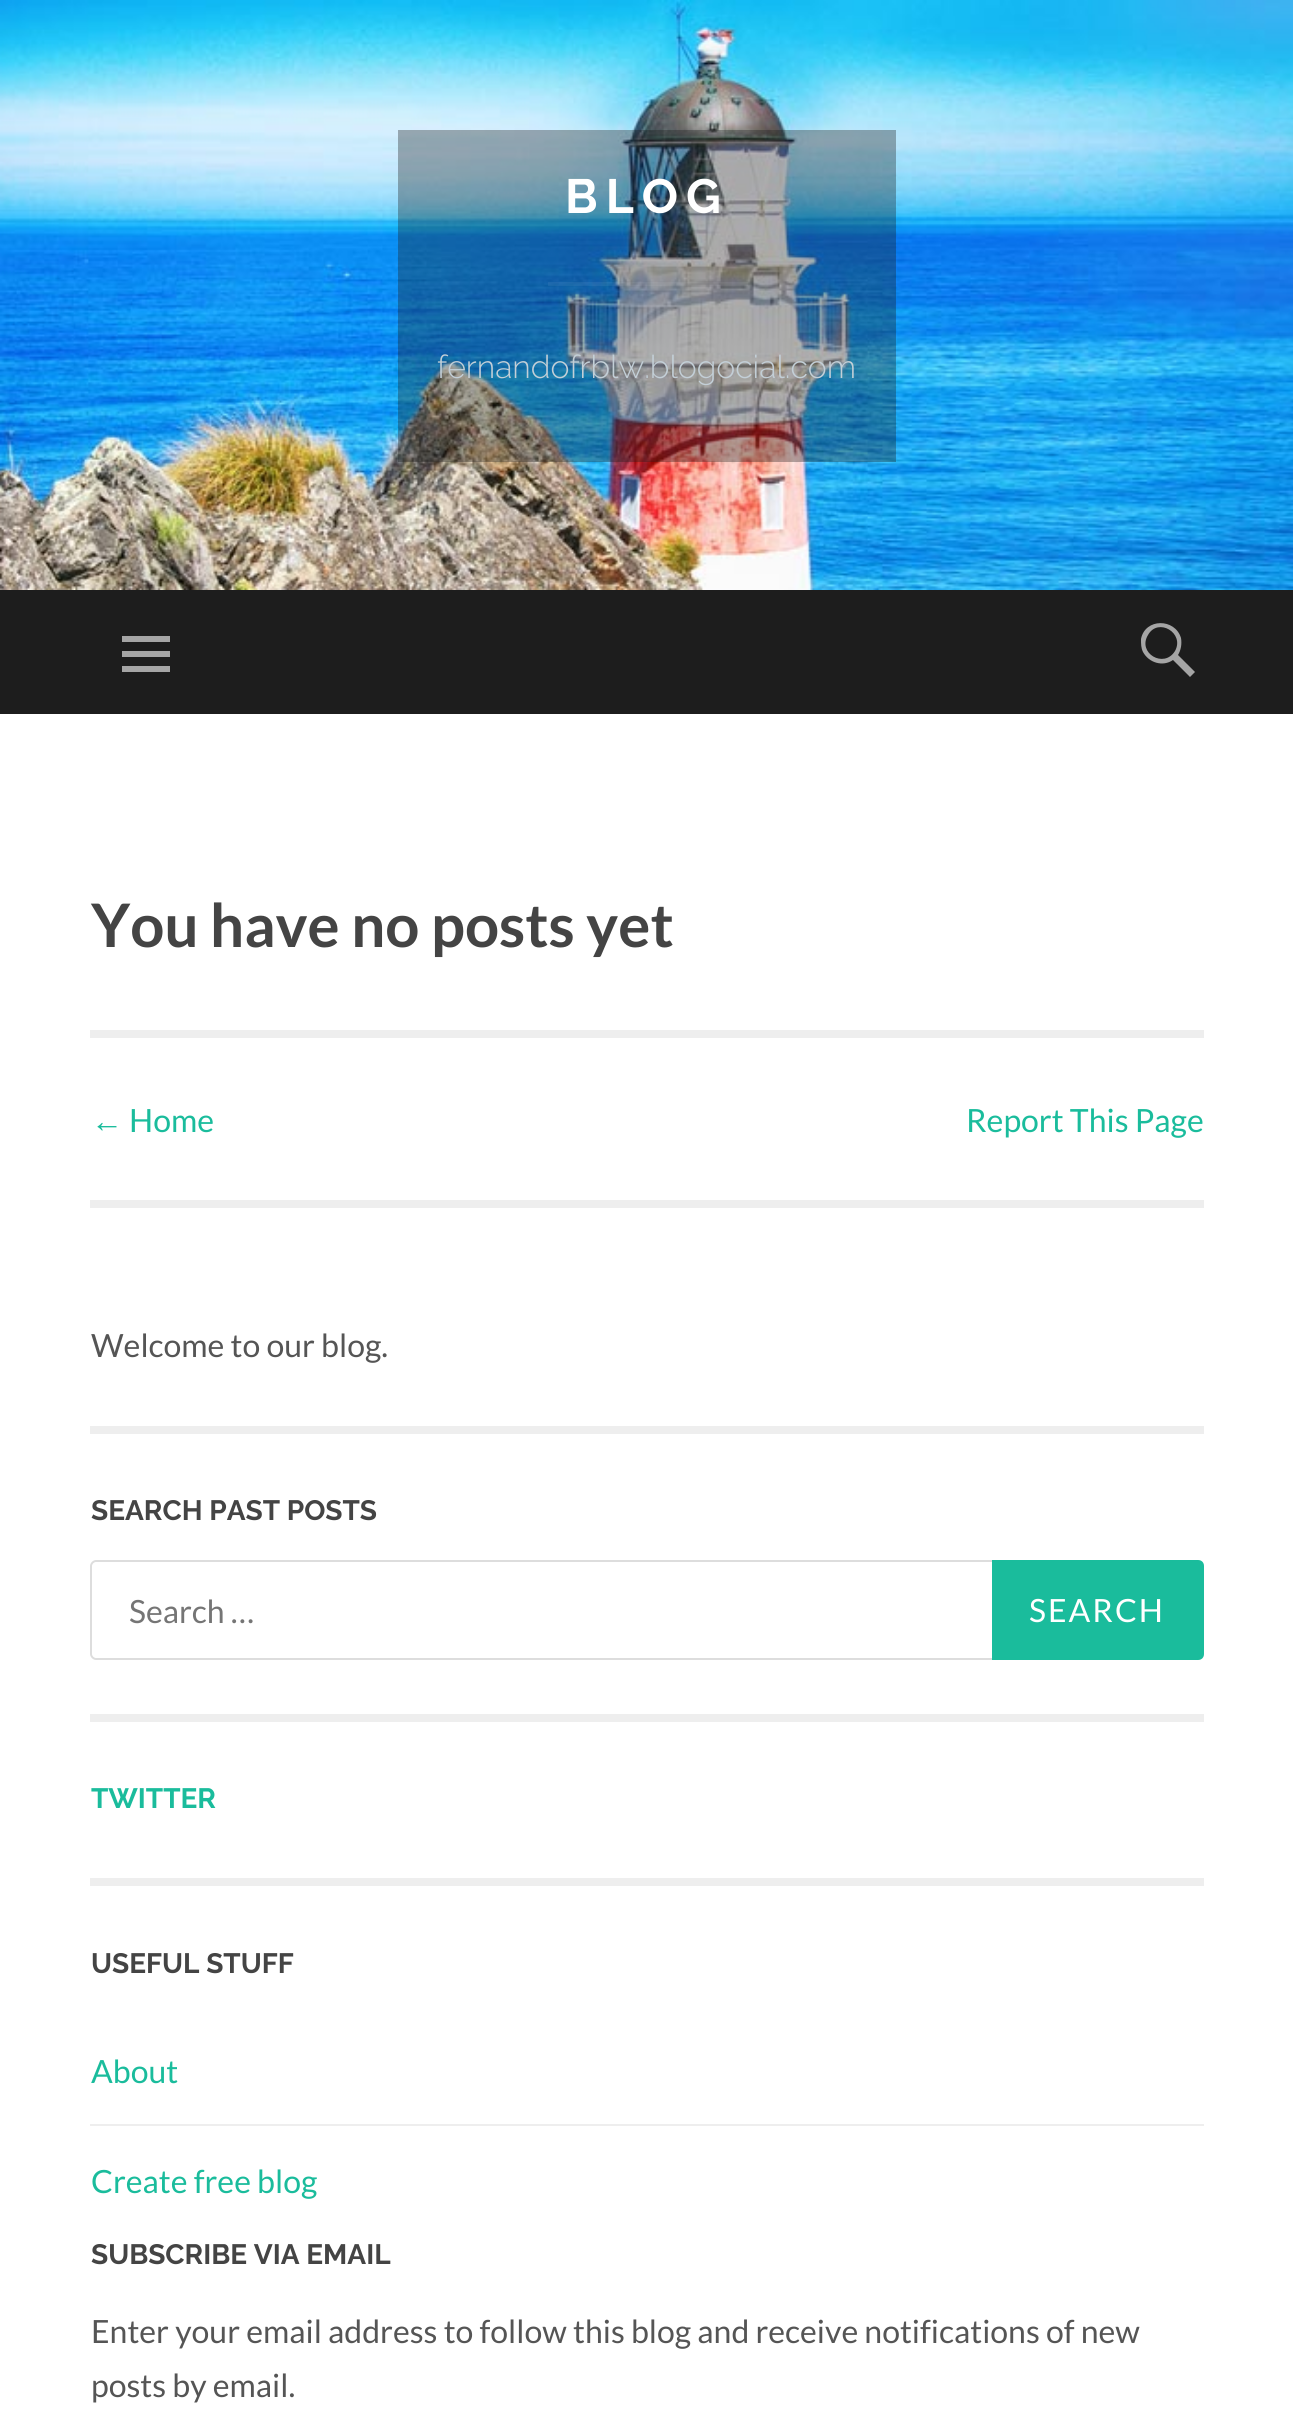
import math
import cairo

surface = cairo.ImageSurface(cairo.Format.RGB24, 1293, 2422)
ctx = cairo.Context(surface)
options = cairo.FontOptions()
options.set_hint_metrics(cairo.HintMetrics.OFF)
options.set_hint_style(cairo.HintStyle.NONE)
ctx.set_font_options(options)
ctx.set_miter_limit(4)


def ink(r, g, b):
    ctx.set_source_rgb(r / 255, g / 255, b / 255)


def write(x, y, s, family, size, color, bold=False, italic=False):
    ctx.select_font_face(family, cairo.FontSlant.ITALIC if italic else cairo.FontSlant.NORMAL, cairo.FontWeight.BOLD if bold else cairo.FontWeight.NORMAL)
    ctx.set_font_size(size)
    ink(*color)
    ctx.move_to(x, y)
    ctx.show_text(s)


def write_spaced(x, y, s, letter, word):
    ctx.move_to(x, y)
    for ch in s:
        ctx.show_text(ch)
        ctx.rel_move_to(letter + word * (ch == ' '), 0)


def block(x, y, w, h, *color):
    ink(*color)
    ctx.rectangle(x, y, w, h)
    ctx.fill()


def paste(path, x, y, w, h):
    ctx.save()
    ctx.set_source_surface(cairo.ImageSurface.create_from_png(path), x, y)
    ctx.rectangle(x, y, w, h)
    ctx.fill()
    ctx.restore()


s1 = dict(family="Raleway Light", size=32, color=(195, 207, 215))
s2 = dict(family="Lato", size=60, color=(68, 68, 68), bold=True)
s3 = dict(family="Liberation Sans", size=32, color=(26, 188, 156))
s4 = dict(family="Lato", size=32, color=(26, 188, 156))
s5 = dict(family="Lato", size=32, color=(85, 85, 85))
s6 = dict(family="Raleway", size=28, color=(68, 68, 68), bold=True)
s7 = dict(family="Lato", size=32, color=(117, 117, 117))
s8 = dict(family="Raleway", size=28, color=(26, 188, 156), bold=True)

ink(255, 255, 255)
ctx.paint()
paste("pic1.png", 0, 0, 1293, 590)
ctx.set_source_rgba(0.114, 0.114, 0.114, 0.34)
ctx.rectangle(398, 130, 498, 332)
ctx.fill()
ctx.select_font_face("Raleway", cairo.FontSlant.NORMAL, cairo.FontWeight.BOLD)
ctx.set_font_size(48)
ink(255, 255, 255)
write_spaced(565, 213, "BLOG", 8, 0)
ctx.set_source_rgba(1, 1, 1, 0.06)
ctx.rectangle(548, 282, 200, 4)
ctx.fill()
write(437, 378, "fernandofrblw.blogocial.com", **s1)
block(0, 590, 1293, 124, 29, 29, 29)
ink(165, 165, 165)
ctx.new_path()
ctx.move_to(122, 672)
ctx.line_to(122, 666)
ctx.line_to(170, 666)
ctx.line_to(170, 672)
ctx.close_path()
ctx.move_to(122, 636)
ctx.line_to(170, 636)
ctx.line_to(170, 642)
ctx.line_to(122, 642)
ctx.close_path()
ctx.move_to(122, 657)
ctx.line_to(122, 651)
ctx.line_to(170, 651)
ctx.line_to(170, 657)
ctx.close_path()
ctx.fill()
ctx.new_path()
ctx.move_to(1195, 672)
ctx.line_to(1190, 677)
ctx.line_to(1173, 660)
ctx.curve_to(1163, 667, 1149, 663, 1143, 652)
ctx.curve_to(1141, 648, 1141, 644, 1141, 639)
ctx.curve_to(1145, 618, 1175, 618, 1181, 638)
ctx.curve_to(1182, 644, 1181, 650, 1178, 655)
ctx.close_path()
ctx.move_to(1148, 635)
ctx.curve_to(1137, 653, 1164, 669, 1175, 651)
ctx.curve_to(1185, 633, 1158, 617, 1148, 635)
ctx.close_path()
ctx.fill()
write(91, 947, "You have no posts yet", **s2)
block(90, 1030, 1114, 8, 238, 238, 238)
block(90, 1200, 1114, 8, 238, 238, 238)
write(91, 1132, "←", **s3)
write(129, 1132, "Home", **s4)
write(966, 1132, "Report This Page", **s4)
block(90, 1426, 1114, 8, 238, 238, 238)
write(91, 1357, "Welcome to our blog.", **s5)
block(90, 1714, 1114, 8, 238, 238, 238)
write(91, 1520, "SEARCH PAST POSTS", **s6)
ink(221, 221, 221)
ctx.set_fill_rule(cairo.FillRule.EVEN_ODD)
ctx.new_path()
ctx.move_to(96, 1560)
ctx.line_to(1192, 1560)
ctx.line_to(1192, 1660)
ctx.line_to(96, 1660)
ctx.curve_to(93, 1660, 90, 1657, 90, 1654)
ctx.line_to(90, 1566)
ctx.curve_to(90, 1563, 93, 1560, 96, 1560)
ctx.close_path()
ctx.move_to(96, 1562)
ctx.line_to(1192, 1562)
ctx.line_to(1192, 1658)
ctx.line_to(96, 1658)
ctx.curve_to(94, 1658, 92, 1656, 92, 1654)
ctx.line_to(92, 1566)
ctx.curve_to(92, 1564, 94, 1562, 96, 1562)
ctx.close_path()
ctx.fill()
write(129, 1623, "Search …", **s7)
ink(26, 188, 156)
ctx.new_path()
ctx.move_to(993, 1561)
ctx.line_to(1198, 1561)
ctx.curve_to(1201, 1561, 1203, 1563, 1203, 1566)
ctx.line_to(1203, 1654)
ctx.curve_to(1203, 1657, 1201, 1659, 1198, 1659)
ctx.line_to(993, 1659)
ctx.close_path()
ctx.fill_preserve()
ctx.stroke()
ink(255, 255, 255)
write_spaced(1029, 1622, "SEARCH", 2, 0)
block(90, 1878, 1114, 8, 238, 238, 238)
write(91, 1808, "TWITTER", **s8)
write(91, 1973, "USEFUL STUFF", **s6)
write(91, 2083, "About", **s4)
block(90, 2124, 1114, 2, 238, 238, 238)
write(91, 2193, "Create free blog", **s4)
write(91, 2264, "SUBSCRIBE VIA EMAIL", **s6)
write(91, 2343, "Enter your email address to follow this blog and receive notifications of new", **s5)
write(91, 2397, "posts by email.", **s5)
surface.write_to_png("screenshot.png")
